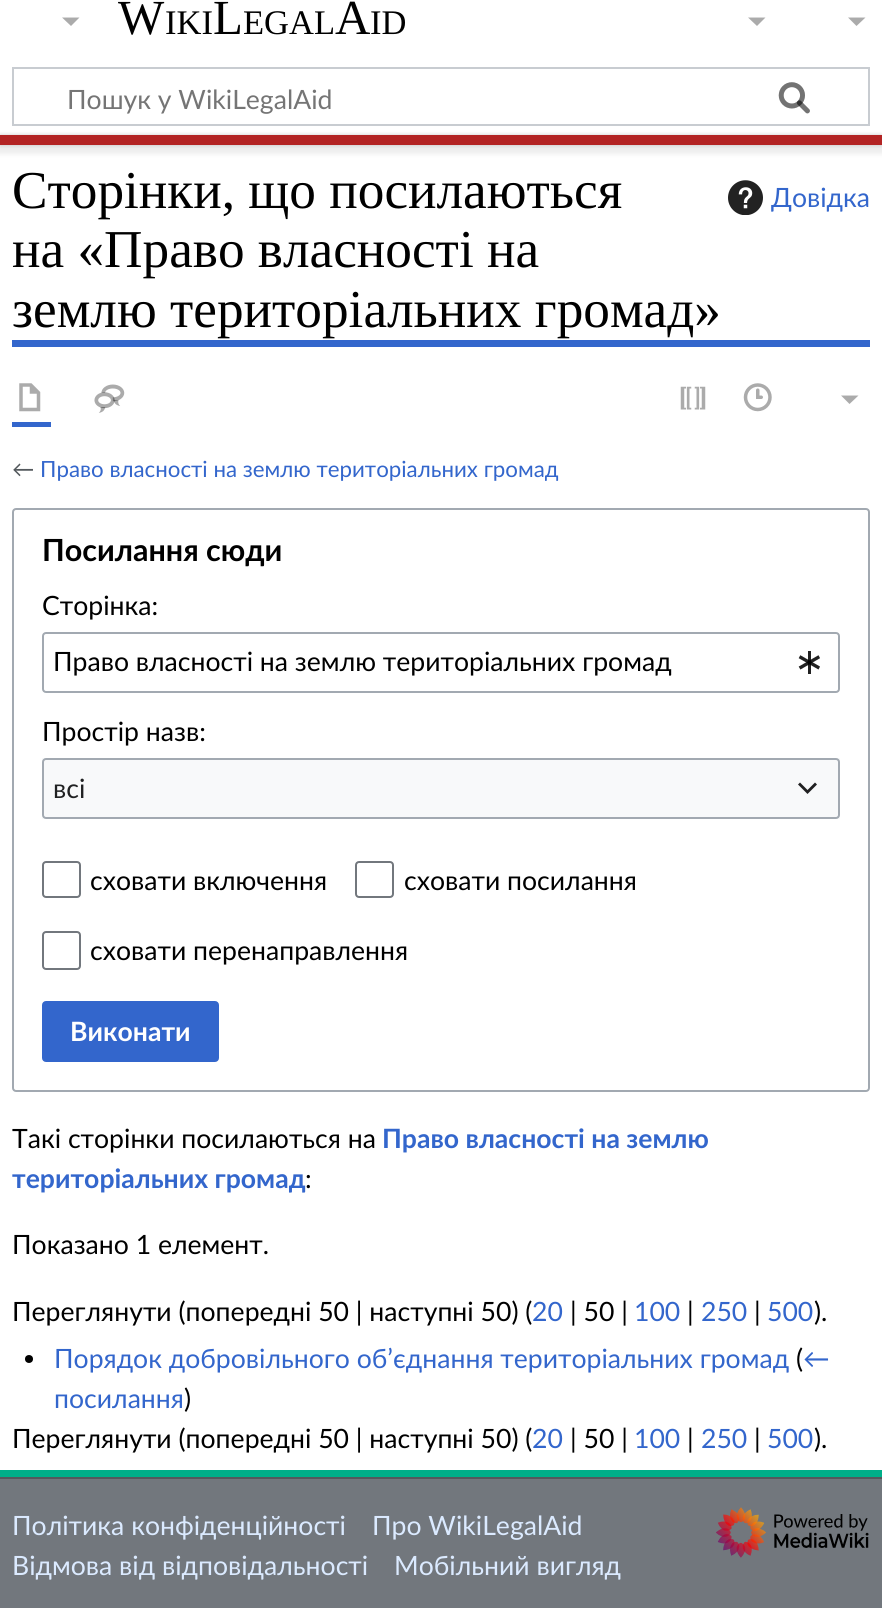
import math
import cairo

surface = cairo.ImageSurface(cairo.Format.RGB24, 882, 1608)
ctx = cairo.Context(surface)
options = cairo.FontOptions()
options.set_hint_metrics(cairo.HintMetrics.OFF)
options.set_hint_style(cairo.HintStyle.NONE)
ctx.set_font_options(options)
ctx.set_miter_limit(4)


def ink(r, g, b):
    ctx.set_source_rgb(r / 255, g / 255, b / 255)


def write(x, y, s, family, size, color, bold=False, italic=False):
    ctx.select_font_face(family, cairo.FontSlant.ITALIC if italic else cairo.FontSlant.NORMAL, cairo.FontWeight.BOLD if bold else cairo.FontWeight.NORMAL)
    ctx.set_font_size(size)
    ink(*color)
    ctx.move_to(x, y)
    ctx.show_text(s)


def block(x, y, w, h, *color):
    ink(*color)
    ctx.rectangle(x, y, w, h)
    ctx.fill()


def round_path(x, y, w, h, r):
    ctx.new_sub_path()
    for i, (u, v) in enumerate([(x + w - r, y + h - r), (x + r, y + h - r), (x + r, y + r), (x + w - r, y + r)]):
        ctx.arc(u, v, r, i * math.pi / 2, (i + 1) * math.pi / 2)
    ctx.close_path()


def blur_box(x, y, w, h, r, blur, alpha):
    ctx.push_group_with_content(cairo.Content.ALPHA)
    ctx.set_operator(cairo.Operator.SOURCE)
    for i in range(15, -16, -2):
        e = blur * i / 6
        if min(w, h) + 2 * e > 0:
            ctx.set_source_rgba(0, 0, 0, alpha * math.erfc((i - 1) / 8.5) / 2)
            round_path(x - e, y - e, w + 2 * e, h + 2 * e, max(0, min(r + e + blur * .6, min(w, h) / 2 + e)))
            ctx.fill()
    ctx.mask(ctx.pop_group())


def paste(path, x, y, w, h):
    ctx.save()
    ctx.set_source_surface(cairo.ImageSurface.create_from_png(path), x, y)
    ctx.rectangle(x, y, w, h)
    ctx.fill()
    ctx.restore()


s1 = dict(family="Liberation Serif", size=49, color=(0, 0, 0))
s2 = dict(family="Liberation Serif", size=34.5, color=(0, 0, 0))
s3 = dict(family="Lato", size=26.6, color=(117, 117, 117))
s4 = dict(family="Liberation Serif", size=53.25, color=(0, 0, 0))
s5 = dict(family="Lato", size=26.6, color=(51, 102, 204))
s6 = dict(family="Lato", size=22.3, color=(84, 89, 93))
s7 = dict(family="Lato", size=22.3, color=(51, 102, 204))
s8 = dict(family="Lato", size=30.5, color=(0, 0, 0), bold=True)
s9 = dict(family="Lato", size=26.6, color=(0, 0, 0))
s10 = dict(family="Lato", size=26.6, color=(32, 33, 34))
s11 = dict(family="Lato", size=26.6, color=(255, 255, 255), bold=True)
s12 = dict(family="Lato", size=26.6, color=(51, 102, 204), bold=True)
s13 = dict(family="Lato", size=26.6, color=(219, 234, 255))

ink(114, 119, 125)
ctx.paint()
block(0, 0, 882, 135, 255, 255, 255)
write(118, 34, "W", **s1)
write(165, 34, "IKI", **s2)
write(213, 34, "L", **s1)
write(243, 34, "EGAL", **s2)
write(335, 34, "A", **s1)
write(370, 34, "ID", **s2)
ink(171, 171, 171)
ctx.new_path()
ctx.move_to(865.5, 17.5)
ctx.line_to(856.5, 26)
ctx.line_to(848, 17.5)
ctx.close_path()
ctx.fill()
ctx.rectangle(13, 68, 856, 57)
ink(200, 204, 209)
ctx.stroke()
paste("pic1.png", 778, 82, 32, 32)
write(67, 109, "Пошук у WikiLegalAid", **s3)
paste("pic2.png", 778, 82, 32, 32)
block(0, 145, 882, 1325, 255, 255, 255)
ink(0, 0, 0)
blur_box(0, 135, 882, 10, 0, 2, 0.2)
blur_box(-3, 137, 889, 17, 0, 2.5, 0.07)
block(0, 135, 882, 10, 179, 36, 36)
block(0, 1470, 882, 7, 0, 175, 137)
ink(171, 171, 171)
ctx.new_path()
ctx.move_to(79.5, 17.5)
ctx.line_to(71, 26)
ctx.line_to(62, 17.5)
ctx.close_path()
ctx.fill()
ctx.new_path()
ctx.move_to(765.5, 17.5)
ctx.line_to(757, 26)
ctx.line_to(748, 17.5)
ctx.close_path()
ctx.fill()
block(12, 340, 858, 7, 51, 102, 204)
write(12, 208, "Сторінки, що посилаються", **s4)
write(12, 267, "на «Право власності на", **s4)
write(12, 327, "землю територіальних громад»", **s4)
paste("pic3.png", 728, 180, 35, 35)
write(771, 207, "Довідка", **s5)
block(12, 422, 39, 5, 51, 102, 204)
paste("pic4.png", 19, 383, 22, 29)
paste("pic5.png", 94, 384, 31, 29)
paste("pic6.png", 680, 386, 26, 24)
paste("pic7.png", 743, 383, 29, 29)
ink(171, 171, 171)
ctx.new_path()
ctx.move_to(858.5, 395.5)
ctx.line_to(849.5, 404)
ctx.line_to(841, 395.5)
ctx.close_path()
ctx.fill()
write(12, 477, "←", **s6)
write(40, 477, "Право власності на землю територіальних громад", **s7)
round_path(13, 509, 856, 582, 3)
ink(162, 169, 177)
ctx.stroke()
write(42, 561, "Посилання сюди", **s8)
write(42, 615, "Сторінка:", **s9)
round_path(43, 633, 796, 59, 3)
ink(162, 169, 177)
ctx.stroke()
write(53, 671, "Право власності на землю територіальних громад", **s9)
paste("pic8.png", 798, 651, 22, 23)
write(42, 741, "Простір назв:", **s9)
block(42, 758, 798, 61, 248, 249, 250)
round_path(43, 759, 796, 59, 3)
ink(162, 169, 177)
ctx.stroke()
write(53, 798, "всі", **s10)
ink(32, 32, 33)
ctx.new_path()
ctx.move_to(815, 782.5)
ctx.line_to(807.5, 790)
ctx.line_to(800, 782.5)
ctx.line_to(798, 784.5)
ctx.line_to(807.5, 794)
ctx.line_to(817, 784.5)
ctx.close_path()
ctx.fill()
round_path(43, 862, 37, 35, 3)
ink(114, 119, 125)
ctx.stroke()
write(90, 890, "сховати включення", **s9)
round_path(356, 862, 37, 35, 3)
ink(114, 119, 125)
ctx.stroke()
write(404, 890, "сховати посилання", **s9)
round_path(43, 932, 37, 37, 3)
ink(114, 119, 125)
ctx.stroke()
write(90, 960, "сховати перенаправлення", **s9)
ink(51, 102, 204)
round_path(43, 1002, 175, 59, 3)
ctx.fill_preserve()
ctx.stroke()
write(70, 1041, "Виконати", **s11)
write(12, 1148, "Такі сторінки посилаються на", **s9)
write(382, 1148, "Право власності на землю", **s12)
write(12, 1188, "територіальних громад", **s12)
write(305, 1188, ":", **s9)
write(12, 1254, "Показано 1 елемент.", **s9)
write(12, 1321, "Переглянути (попередні 50 | наступні 50) (", **s9)
write(532, 1321, "20", **s5)
write(570, 1321, "| 50 |", **s9)
write(634, 1321, "100", **s5)
write(687, 1321, "|", **s9)
write(701, 1321, "250", **s5)
write(754, 1321, "|", **s9)
write(767, 1321, "500", **s5)
write(814, 1321, ").", **s9)
ctx.new_path()
ctx.arc(29, 1359, 4, 0, 2 * math.pi)
ctx.fill()
write(54, 1368, "Порядок добровільного об’єднання територіальних громад", **s5)
write(796, 1368, "(", **s9)
write(803, 1368, "←", **s5)
write(54, 1408, "посилання", **s5)
write(184, 1408, ")", **s9)
write(12, 1448, "Переглянути (попередні 50 | наступні 50) (", **s9)
write(532, 1448, "20", **s5)
write(570, 1448, "| 50 |", **s9)
write(634, 1448, "100", **s5)
write(687, 1448, "|", **s9)
write(701, 1448, "250", **s5)
write(754, 1448, "|", **s9)
write(767, 1448, "500", **s5)
write(814, 1448, ").", **s9)
block(0, 1477, 882, 2, 84, 89, 93)
write(12, 1535, "Політика конфіденційності", **s13)
write(372, 1535, "Про WikiLegalAid", **s13)
write(12, 1575, "Відмова від відповідальності", **s13)
write(394, 1575, "Мобільний вигляд", **s13)
paste("pic9.png", 716, 1507, 153, 51)
surface.write_to_png("screenshot.png")
